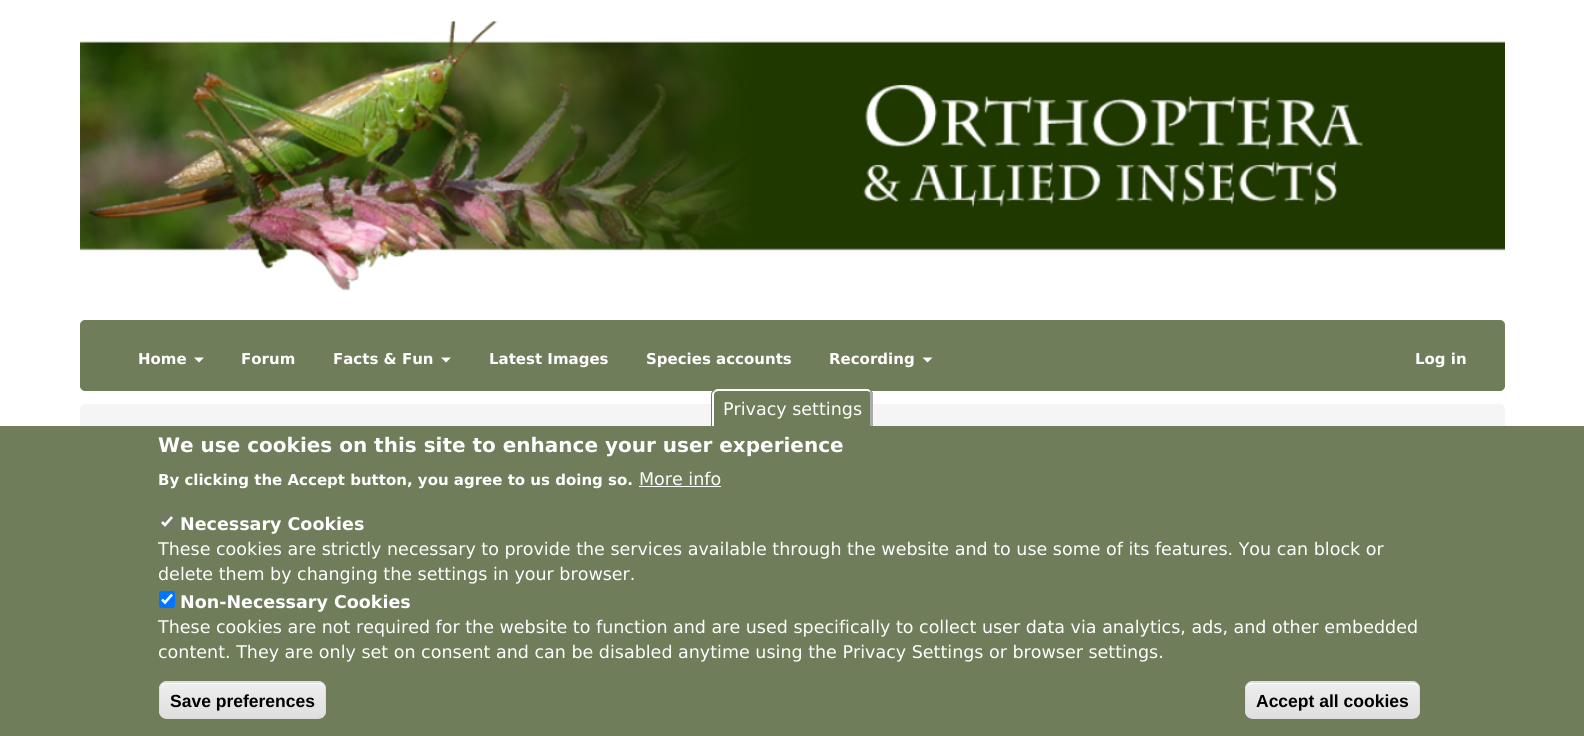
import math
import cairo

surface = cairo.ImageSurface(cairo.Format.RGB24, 1584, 736)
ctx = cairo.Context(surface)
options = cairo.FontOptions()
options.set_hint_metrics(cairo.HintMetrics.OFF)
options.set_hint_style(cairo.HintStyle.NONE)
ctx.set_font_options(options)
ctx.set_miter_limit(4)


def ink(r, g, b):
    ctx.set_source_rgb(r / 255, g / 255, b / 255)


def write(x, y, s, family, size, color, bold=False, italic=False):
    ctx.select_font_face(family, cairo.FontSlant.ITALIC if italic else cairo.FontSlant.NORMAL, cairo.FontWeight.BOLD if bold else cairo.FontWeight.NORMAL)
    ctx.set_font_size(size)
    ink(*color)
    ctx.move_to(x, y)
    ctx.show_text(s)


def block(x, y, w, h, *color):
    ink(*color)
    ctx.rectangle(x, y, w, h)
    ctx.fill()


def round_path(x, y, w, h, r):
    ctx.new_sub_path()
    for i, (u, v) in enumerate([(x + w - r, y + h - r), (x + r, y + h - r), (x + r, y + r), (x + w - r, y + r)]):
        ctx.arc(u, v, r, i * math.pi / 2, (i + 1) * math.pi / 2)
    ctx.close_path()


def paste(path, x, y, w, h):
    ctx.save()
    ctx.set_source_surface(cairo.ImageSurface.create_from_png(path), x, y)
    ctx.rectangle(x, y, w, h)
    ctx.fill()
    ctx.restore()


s1 = dict(family="DejaVu Sans", size=15, color=(255, 255, 255), bold=True)
s2 = dict(family="DejaVu Sans", size=17.5, color=(255, 255, 255))
s3 = dict(family="DejaVu Sans", size=20, color=(255, 255, 255), bold=True)
s4 = dict(family="DejaVu Sans", size=17.5, color=(255, 255, 255), bold=True)
s5 = dict(family="Liberation Sans", size=17.5, color=(0, 0, 0), bold=True)

ink(255, 255, 255)
ctx.paint()
paste("pic1.png", 80, 21, 1425, 270)
ink(111, 125, 91)
round_path(80.5, 320.5, 1424, 70, 4.5)
ctx.fill_preserve()
ctx.set_line_width(1)
ctx.stroke()
write(138, 364, "Home", **s1)
ctx.new_path()
ctx.move_to(194, 357.5)
ctx.line_to(204, 357.5)
ctx.line_to(199, 362.5)
ctx.close_path()
ctx.fill()
write(241, 364, "Forum", **s1)
write(333, 364, "Facts & Fun", **s1)
ctx.new_path()
ctx.move_to(441, 357.5)
ctx.line_to(451, 357.5)
ctx.line_to(446, 362.5)
ctx.close_path()
ctx.fill()
write(489, 364, "Latest Images", **s1)
write(646, 364, "Species accounts", **s1)
write(829, 364, "Recording", **s1)
ctx.new_path()
ctx.move_to(922.5, 357.5)
ctx.line_to(932.5, 357.5)
ctx.line_to(927.5, 362.5)
ctx.close_path()
ctx.fill()
write(1415, 364, "Log in", **s1)
ink(245, 245, 245)
round_path(80, 404, 1425, 45, 5)
ctx.fill()
block(0, 426, 1584, 310, 111, 125, 91)
ctx.new_path()
ctx.move_to(717, 389)
ctx.line_to(867, 389)
ctx.curve_to(870.5, 389, 873, 391.5, 873, 395)
ctx.line_to(873, 426)
ctx.line_to(711, 426)
ctx.line_to(711, 395)
ctx.curve_to(711, 391.5, 713.5, 389, 717, 389)
ctx.close_path()
ctx.fill()
ink(255, 255, 255)
ctx.new_path()
ctx.move_to(718, 389)
ctx.line_to(868, 389)
ctx.line_to(871, 391)
ctx.line_to(869, 392)
ctx.line_to(868, 391)
ctx.line_to(718, 391)
ctx.line_to(715, 392)
ctx.line_to(714, 391)
ctx.curve_to(715, 390, 716, 389, 718, 389)
ctx.close_path()
ctx.fill()
ink(170, 170, 170)
ctx.new_path()
ctx.move_to(871, 390.5)
ctx.curve_to(872, 392, 873, 393, 873, 394.5)
ctx.line_to(873, 426)
ctx.line_to(870, 426)
ctx.line_to(870, 395)
ctx.curve_to(870, 394, 870, 393, 869.5, 392.5)
ctx.close_path()
ctx.fill()
ink(255, 255, 255)
ctx.new_path()
ctx.move_to(714, 391)
ctx.line_to(715, 392.5)
ctx.curve_to(714.5, 393, 714, 394, 714, 395)
ctx.line_to(714, 426)
ctx.line_to(712, 426)
ctx.line_to(712, 395)
ctx.curve_to(712, 393.5, 712.5, 392, 714, 391)
ctx.close_path()
ctx.fill()
write(723, 415, "Privacy settings", **s2)
write(158, 452, "We use cookies on this site to enhance your user experience", **s3)
write(158, 485, "By clicking the Accept button, you agree to us doing so.", **s1)
write(639, 485, "More info", **s2)
block(639, 486, 82, 1, 255, 255, 255)
ink(113, 123, 99)
round_path(159, 514, 16, 16, 2.5)
ctx.fill()
ctx.new_path()
ctx.move_to(162, 522)
ctx.line_to(165, 525)
ctx.line_to(172, 517)
ink(255, 255, 255)
ctx.set_line_width(2.6)
ctx.stroke()
write(180, 530, "Necessary Cookies", **s4)
write(158, 555, "These cookies are strictly necessary to provide the services available through the website and to use some of its features. You can block or", **s2)
write(158, 580, "delete them by changing the settings in your browser.", **s2)
ink(0, 117, 255)
round_path(159, 591, 16, 17, 2.5)
ctx.fill()
ctx.new_path()
ctx.move_to(162, 599.5)
ctx.line_to(165, 602.5)
ctx.line_to(172, 594.5)
ink(255, 255, 255)
ctx.stroke()
write(180, 608, "Non-Necessary Cookies", **s4)
write(158, 633, "These cookies are not required for the website to function and are used specifically to collect user data via analytics, ads, and other embedded", **s2)
write(158, 658, "content. They are only set on consent and can be disabled anytime using the Privacy Settings or browser settings.", **s2)
ctx.save()
round_path(159, 681, 167, 38, 8)
ctx.clip()
gradient = cairo.LinearGradient(243, 648, 243, 683)
gradient.add_color_stop_rgba(0.05, 0.929, 0.929, 0.929, 1)
gradient.add_color_stop_rgba(1, 0.875, 0.875, 0.875, 1)
ctx.set_source(gradient)
ctx.rectangle(159, 681, 167, 2)
ctx.fill()
gradient = cairo.LinearGradient(243, 683, 243, 718)
gradient.add_color_stop_rgba(0.05, 0.929, 0.929, 0.929, 1)
gradient.add_color_stop_rgba(1, 0.875, 0.875, 0.875, 1)
ctx.set_source(gradient)
ctx.rectangle(159, 683, 167, 35)
ctx.fill()
ctx.restore()
ctx.new_path()
ctx.move_to(166, 684)
ctx.line_to(319, 684)
ctx.curve_to(322, 684, 325, 687, 325, 690)
ctx.line_to(325, 689)
ctx.curve_to(325, 686, 322, 683, 319, 683)
ctx.line_to(166, 683)
ctx.curve_to(163, 683, 160, 686, 160, 689)
ctx.line_to(160, 690)
ctx.curve_to(160, 687, 163, 684, 166, 684)
ctx.close_path()
ctx.fill()
round_path(159.5, 681.5, 166, 37, 7.5)
ink(220, 220, 220)
ctx.set_line_width(1)
ctx.stroke()
write(170, 707, "Save preferences", **s5)
ctx.save()
round_path(1245, 681, 175, 38, 8)
ctx.clip()
gradient = cairo.LinearGradient(1333, 648, 1333, 683)
gradient.add_color_stop_rgba(0.05, 0.929, 0.929, 0.929, 1)
gradient.add_color_stop_rgba(1, 0.875, 0.875, 0.875, 1)
ctx.set_source(gradient)
ctx.rectangle(1245, 681, 175, 2)
ctx.fill()
gradient = cairo.LinearGradient(1333, 683, 1333, 718)
gradient.add_color_stop_rgba(0.05, 0.929, 0.929, 0.929, 1)
gradient.add_color_stop_rgba(1, 0.875, 0.875, 0.875, 1)
ctx.set_source(gradient)
ctx.rectangle(1245, 683, 175, 35)
ctx.fill()
ctx.restore()
ink(255, 255, 255)
ctx.new_path()
ctx.move_to(1252, 684)
ctx.line_to(1412, 684)
ctx.curve_to(1416, 684, 1419, 687, 1419, 690)
ctx.line_to(1419, 689)
ctx.curve_to(1419, 686, 1416, 683, 1413, 683)
ctx.line_to(1252, 683)
ctx.curve_to(1249, 683, 1246, 686, 1246, 689)
ctx.line_to(1246, 690)
ctx.curve_to(1246, 687, 1249, 684, 1252, 684)
ctx.close_path()
ctx.fill()
round_path(1245.5, 681.5, 174, 37, 7.5)
ink(220, 220, 220)
ctx.stroke()
write(1256, 707, "Accept all cookies", **s5)
surface.write_to_png("screenshot.png")
